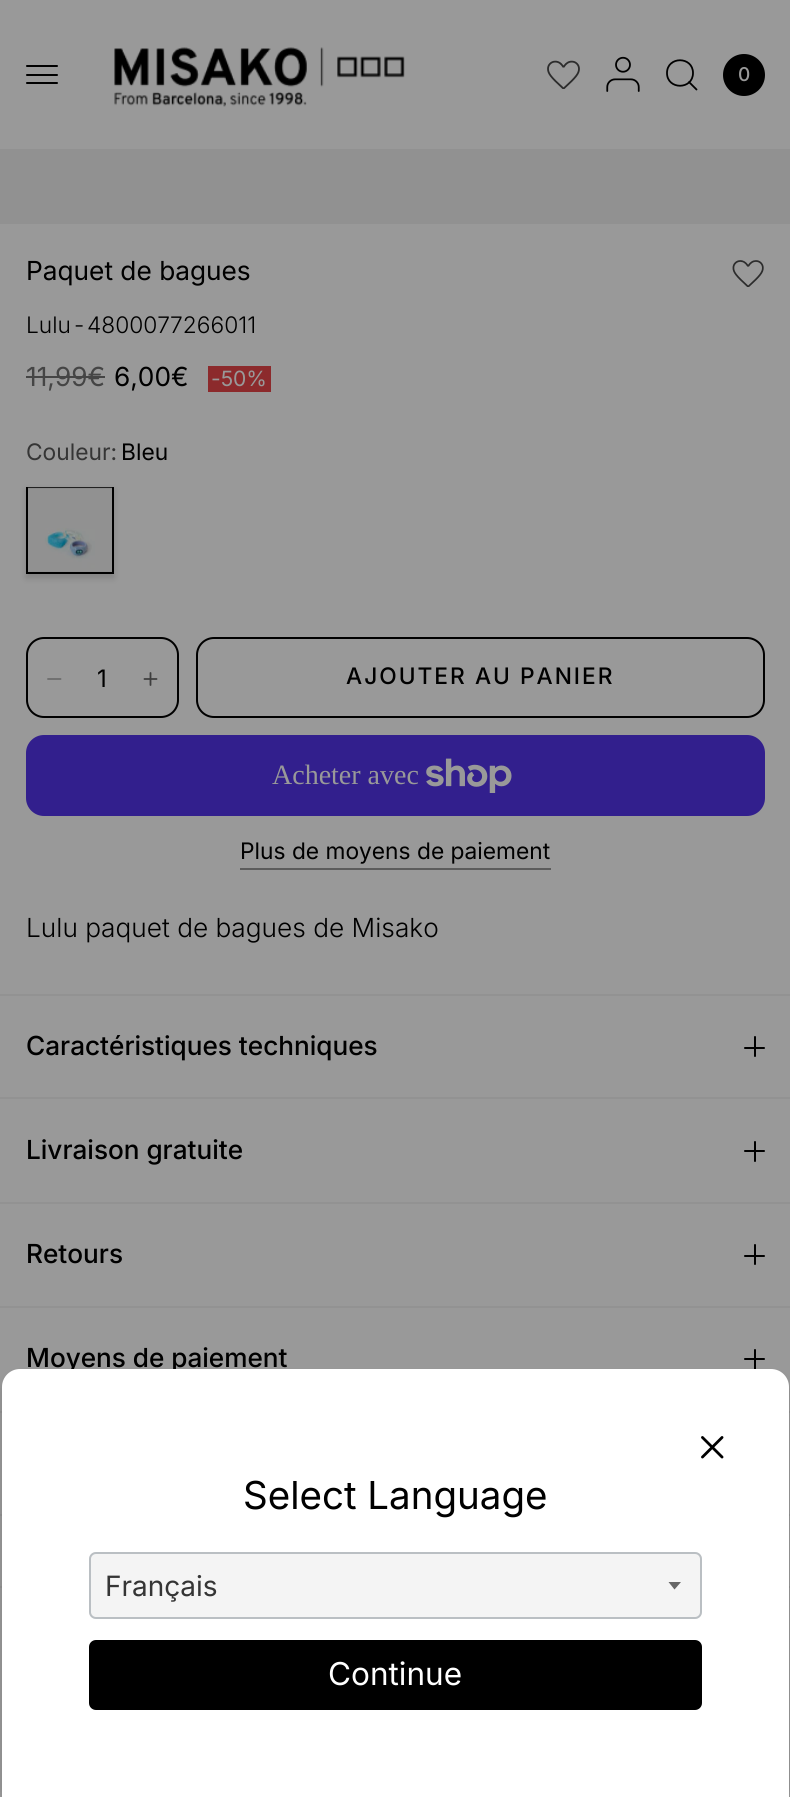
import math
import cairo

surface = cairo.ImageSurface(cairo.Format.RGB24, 790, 1797)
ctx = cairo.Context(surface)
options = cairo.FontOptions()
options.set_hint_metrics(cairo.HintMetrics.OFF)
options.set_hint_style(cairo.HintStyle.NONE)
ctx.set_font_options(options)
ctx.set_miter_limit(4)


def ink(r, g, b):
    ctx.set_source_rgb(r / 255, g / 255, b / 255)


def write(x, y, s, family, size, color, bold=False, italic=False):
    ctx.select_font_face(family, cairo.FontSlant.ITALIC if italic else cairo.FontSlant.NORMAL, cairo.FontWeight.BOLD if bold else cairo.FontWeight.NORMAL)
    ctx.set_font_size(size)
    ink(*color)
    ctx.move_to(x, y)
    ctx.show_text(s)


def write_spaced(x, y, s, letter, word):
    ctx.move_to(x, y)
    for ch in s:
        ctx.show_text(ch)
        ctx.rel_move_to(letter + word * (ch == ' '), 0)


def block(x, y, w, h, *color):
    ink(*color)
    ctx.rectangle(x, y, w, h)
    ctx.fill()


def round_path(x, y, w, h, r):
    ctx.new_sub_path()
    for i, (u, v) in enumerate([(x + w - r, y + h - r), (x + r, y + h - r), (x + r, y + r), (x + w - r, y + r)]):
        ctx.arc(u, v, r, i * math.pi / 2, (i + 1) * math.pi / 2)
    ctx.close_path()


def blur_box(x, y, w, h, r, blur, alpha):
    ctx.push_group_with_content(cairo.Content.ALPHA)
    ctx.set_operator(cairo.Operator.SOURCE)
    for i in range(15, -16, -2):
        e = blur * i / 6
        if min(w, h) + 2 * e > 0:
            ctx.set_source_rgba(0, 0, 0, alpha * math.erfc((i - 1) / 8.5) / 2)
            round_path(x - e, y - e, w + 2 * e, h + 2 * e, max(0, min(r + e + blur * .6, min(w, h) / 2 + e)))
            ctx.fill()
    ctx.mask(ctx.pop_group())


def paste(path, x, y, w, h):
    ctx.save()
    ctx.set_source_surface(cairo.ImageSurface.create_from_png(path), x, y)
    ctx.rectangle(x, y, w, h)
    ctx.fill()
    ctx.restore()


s1 = dict(family="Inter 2 Medium", size=19, color=(153, 153, 153))
s2 = dict(family="Inter", size=26.25, color=(0, 0, 0))
s3 = dict(family="Inter Light", size=22.75, color=(0, 0, 0))
s4 = dict(family="Inter", size=26.25, color=(69, 69, 69))
s5 = dict(family="Inter", size=21, color=(153, 153, 153))
s6 = dict(family="Inter", size=22.75, color=(53, 53, 53))
s7 = dict(family="Inter", size=22.75, color=(0, 0, 0))
s8 = dict(family="Inter", size=24, color=(0, 0, 0))
s9 = dict(family="Liberation Serif", size=28, color=(153, 153, 153))
s10 = dict(family="Inter Light", size=26.25, color=(0, 0, 0))
s11 = dict(family="Inter Medium", size=26.25, color=(0, 0, 0))
s12 = dict(family="Inter", size=38.5, color=(0, 0, 0))
s13 = dict(family="Inter", size=28, color=(53, 53, 53))
s14 = dict(family="Inter", size=31.5, color=(255, 255, 255))

ink(153, 153, 153)
ctx.paint()
ink(0, 0, 0)
round_path(26, 65, 32, 2, 1)
ctx.fill()
round_path(26, 74, 32, 2, 1)
ctx.fill()
round_path(26, 82, 32, 2, 1)
ctx.fill()
paste("pic1.png", 114, 47, 291, 60)
paste("pic2.png", 547, 60, 33, 29)
paste("pic3.png", 606, 56, 34, 36)
ctx.new_path()
ctx.move_to(689, 82)
ctx.line_to(696.5, 89.5)
ctx.move_to(693, 73)
ctx.curve_to(693, 90, 667, 90, 667, 73)
ctx.curve_to(667, 56, 693, 56, 693, 73)
ctx.close_path()
ctx.set_line_width(1.8)
ctx.set_line_cap(cairo.LineCap.ROUND)
ctx.set_line_join(cairo.LineJoin.ROUND)
ctx.stroke()
ctx.arc(744, 75, 21, 0, 2 * math.pi)
ctx.fill()
write(738, 81, "0", **s1)
block(0, 1586, 790, 2, 146, 146, 146)
paste("pic4.png", 0, 149, 790, 75)
write(26, 280, "Paquet de bagues", **s2)
paste("pic5.png", 732, 260, 32, 27)
write(26, 333, "Lulu", **s3)
write(74, 333, "-", **s3)
write(87, 333, "4800077266011", **s3)
write(26, 386, "11,99€", **s4)
block(26, 376, 79, 2, 69, 69, 69)
write(114, 386, "6,00€", **s2)
block(208, 366, 63, 26, 140, 42, 44)
write(211, 386, "-50%", **s5)
write(26, 460, "Couleur:", **s6)
write(121, 460, "Bleu", **s7)
ink(0, 0, 0)
blur_box(26, 490, 88, 88, 0, 3.5, 0.15)
ctx.rectangle(27, 488, 86, 85)
ink(0, 0, 0)
ctx.set_line_width(2)
ctx.set_line_cap(cairo.LineCap.BUTT)
ctx.set_line_join(cairo.LineJoin.MITER)
ctx.stroke()
paste("pic6.png", 28, 487, 84, 85)
round_path(27, 638, 151, 79, 17)
ctx.stroke()
ctx.new_path()
ctx.move_to(48, 679)
ctx.line_to(60.5, 679)
ink(107, 107, 107)
ctx.set_line_width(1.8)
ctx.set_line_cap(cairo.LineCap.ROUND)
ctx.set_line_join(cairo.LineJoin.ROUND)
ctx.stroke()
write(97, 687, "1", **s8)
ctx.new_path()
ctx.move_to(144.5, 679)
ctx.line_to(156.5, 679)
ctx.move_to(150.5, 673)
ctx.line_to(150.5, 685)
ink(61, 61, 61)
ctx.stroke()
round_path(197, 638, 567, 79, 17)
ink(0, 0, 0)
ctx.set_line_width(2)
ctx.set_line_cap(cairo.LineCap.BUTT)
ctx.set_line_join(cairo.LineJoin.MITER)
ctx.stroke()
ctx.select_font_face("Inter 2 Medium")
ctx.set_font_size(22.75)
write_spaced(346, 684, "AJOUTER AU PANIER", 2, 0)
ink(50, 31, 141)
round_path(26, 735, 739, 81, 18)
ctx.fill()
write(272, 784, "Acheter avec", **s9)
paste("pic7.png", 426, 758, 86, 35)
write(240, 859, "Plus de moyens de paiement", **s7)
block(240, 868, 311, 2, 92, 92, 92)
write(26, 937, "Lulu paquet de bagues de Misako", **s10)
block(0, 994, 790, 2, 146, 146, 146)
block(0, 1097, 790, 2, 146, 146, 146)
write(26, 1055, "Caractéristiques techniques", **s11)
round_path(754, 1036, 2, 21, 1)
ctx.fill()
round_path(744, 1047, 21, 2, 1)
ctx.fill()
block(0, 1202, 790, 2, 146, 146, 146)
write(26, 1159, "Livraison gratuite", **s11)
round_path(754, 1141, 2, 21, 1)
ctx.fill()
round_path(744, 1150, 21, 2, 1)
ctx.fill()
block(0, 1306, 790, 2, 146, 146, 146)
write(26, 1263, "Retours", **s11)
round_path(754, 1244, 2, 21, 1)
ctx.fill()
round_path(744, 1255, 21, 2, 1)
ctx.fill()
block(0, 1411, 790, 2, 146, 146, 146)
write(26, 1367, "Moyens de paiement", **s11)
round_path(754, 1349, 2, 21, 1)
ctx.fill()
round_path(744, 1358, 21, 2, 1)
ctx.fill()
block(0, 1514, 790, 2, 146, 146, 146)
ink(0, 0, 0)
blur_box(0, 1374, 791, 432, 19, 3.5, 0.1)
ink(255, 255, 255)
ctx.new_path()
ctx.move_to(20, 1369)
ctx.line_to(771, 1369)
ctx.curve_to(781, 1369, 789, 1377, 789, 1387)
ctx.line_to(789, 1797)
ctx.line_to(2, 1797)
ctx.line_to(2, 1387)
ctx.curve_to(2, 1377, 10, 1369, 20, 1369)
ctx.close_path()
ctx.fill()
paste("pic8.png", 701, 1436, 23, 23)
write(243, 1509, "Select Language", **s12)
ink(244, 244, 244)
round_path(89, 1552, 613, 67, 7)
ctx.fill()
ink(102, 102, 102)
ctx.new_path()
ctx.move_to(668.5, 1582)
ctx.line_to(674.5, 1589.5)
ctx.line_to(681, 1582)
ctx.close_path()
ctx.fill()
round_path(90, 1553, 611, 65, 6)
ink(186, 191, 195)
ctx.stroke()
write(105, 1596, "Français", **s13)
ink(0, 0, 0)
round_path(89, 1640, 613, 70, 7)
ctx.fill()
write(328, 1685, "Continue", **s14)
surface.write_to_png("screenshot.png")
